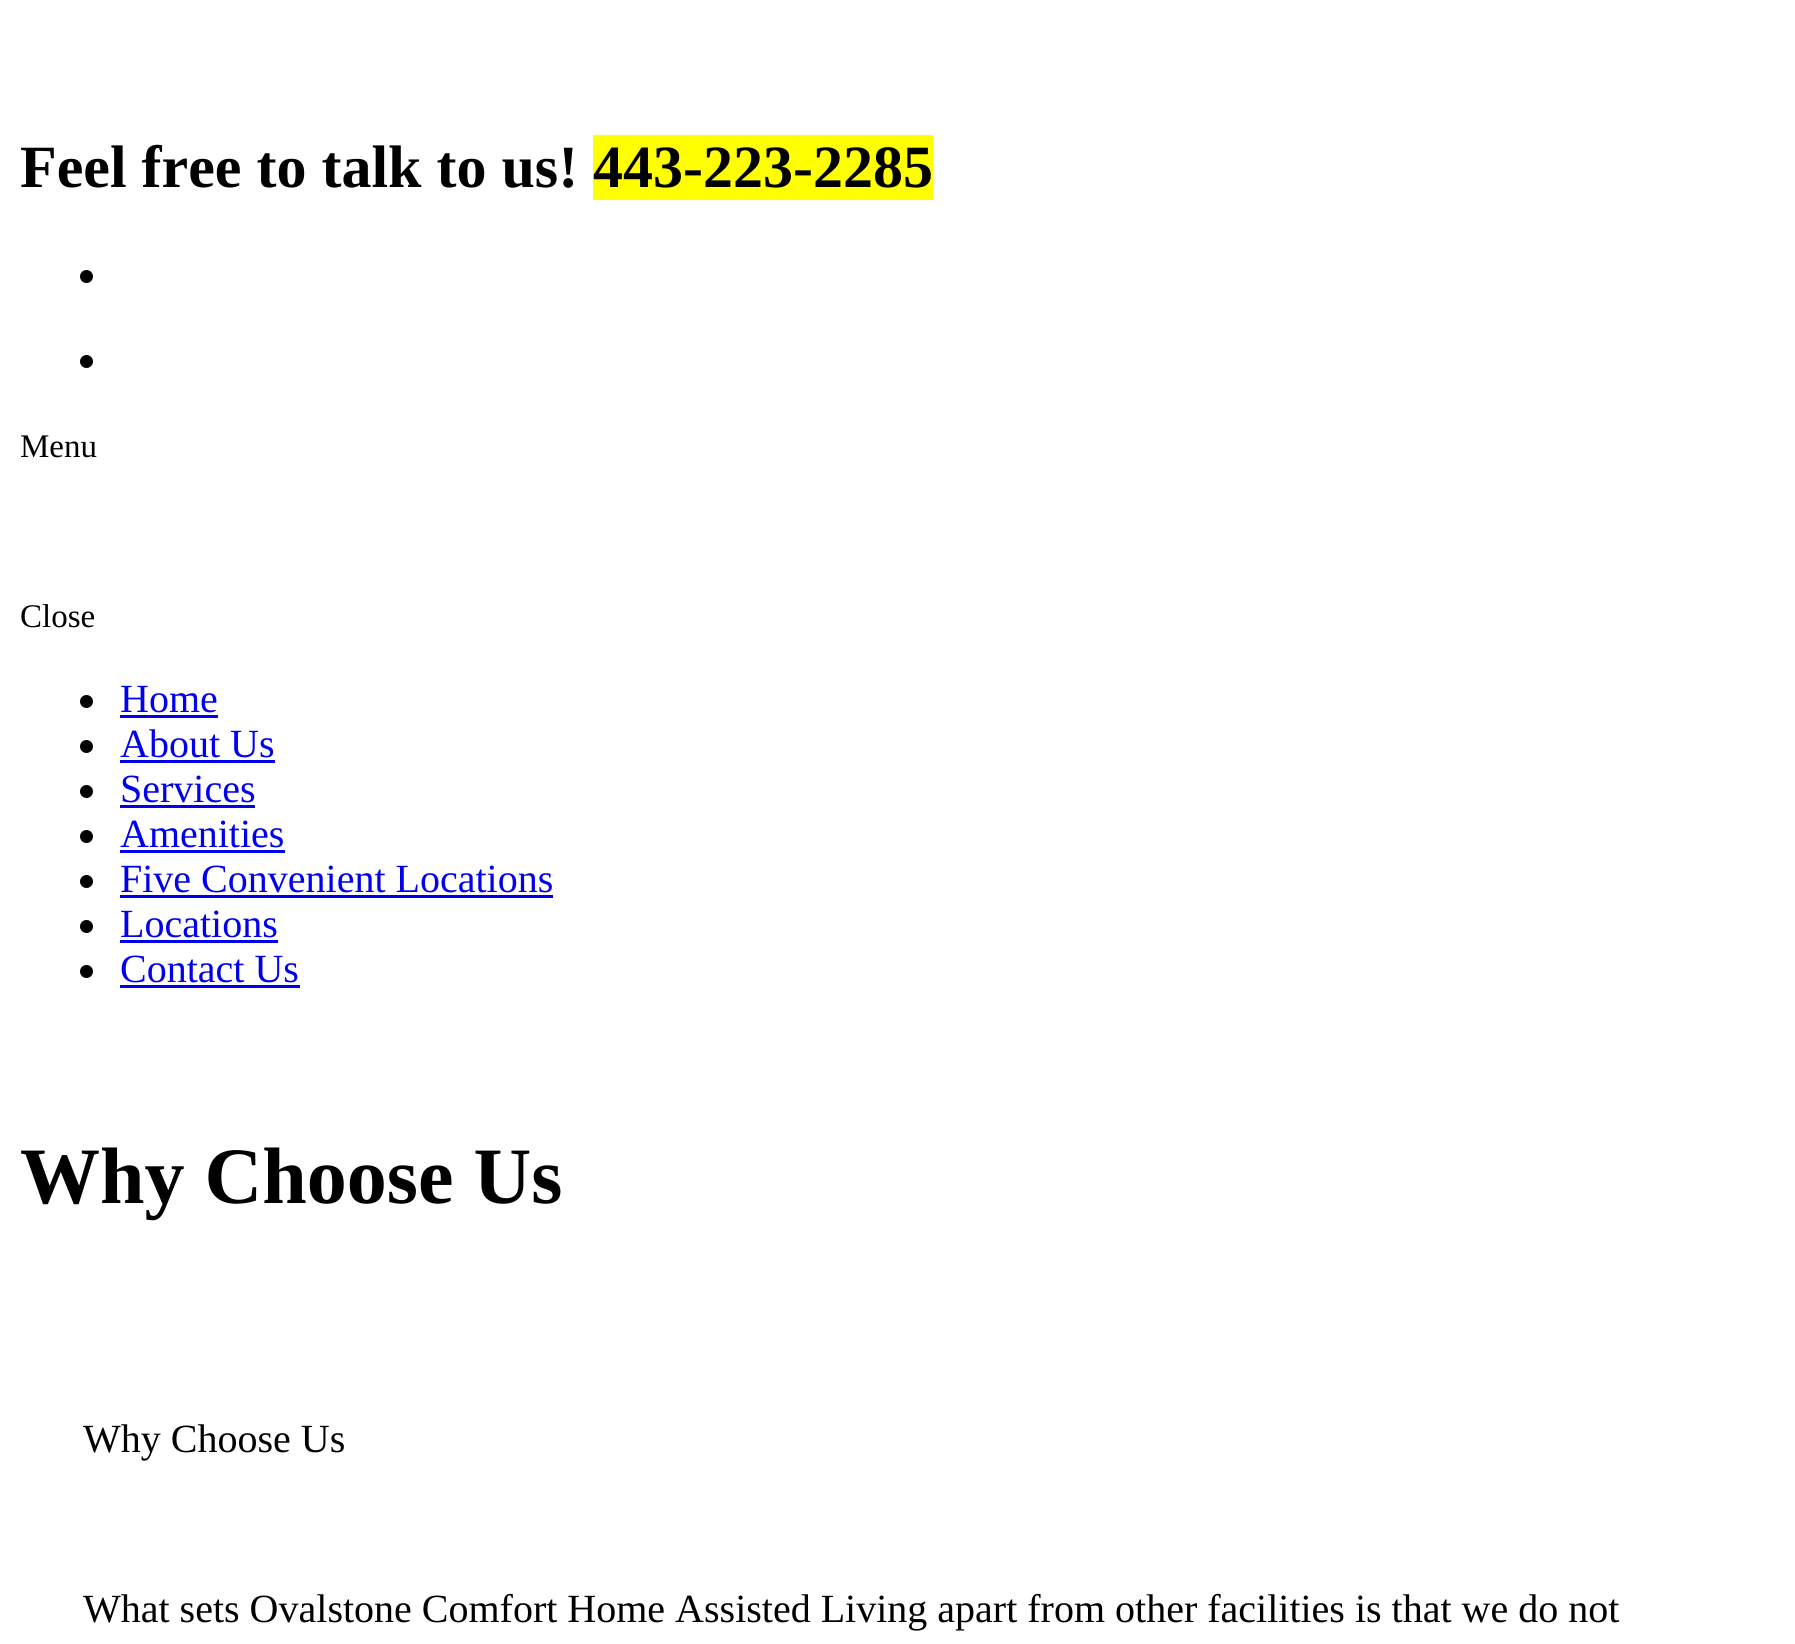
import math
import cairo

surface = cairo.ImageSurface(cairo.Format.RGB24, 1795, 1644)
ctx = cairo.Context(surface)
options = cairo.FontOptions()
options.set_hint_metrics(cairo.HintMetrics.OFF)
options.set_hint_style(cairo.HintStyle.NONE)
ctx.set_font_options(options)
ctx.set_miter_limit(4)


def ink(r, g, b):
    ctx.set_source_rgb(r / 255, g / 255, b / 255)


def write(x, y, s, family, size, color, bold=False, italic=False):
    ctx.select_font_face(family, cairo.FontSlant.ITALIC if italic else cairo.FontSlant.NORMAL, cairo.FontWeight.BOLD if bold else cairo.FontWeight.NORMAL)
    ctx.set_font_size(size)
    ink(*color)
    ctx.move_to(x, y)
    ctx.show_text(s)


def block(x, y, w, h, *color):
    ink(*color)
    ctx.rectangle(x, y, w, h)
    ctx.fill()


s1 = dict(family="Liberation Serif", size=60, color=(0, 0, 0), bold=True)
s2 = dict(family="Liberation Serif", size=33, color=(0, 0, 0))
s3 = dict(family="Liberation Serif", size=40, color=(0, 0, 238))
s4 = dict(family="Liberation Serif", size=80, color=(0, 0, 0), bold=True)
s5 = dict(family="Liberation Serif", size=40, color=(0, 0, 0))

ink(255, 255, 255)
ctx.paint()
write(20, 187, "Feel free to talk to us!", **s1)
block(593, 135, 340, 65, 255, 255, 0)
write(593, 187, "443-223-2285", **s1)
ctx.new_path()
ctx.arc(86.5, 276.5, 6.5, 0, 2 * math.pi)
ctx.fill()
ctx.arc(86.5, 361.5, 6.5, 0, 2 * math.pi)
ctx.fill()
write(20, 457, "Menu", **s2)
write(20, 627, "Close", **s2)
ctx.new_path()
ctx.arc(86.5, 701.5, 6.5, 0, 2 * math.pi)
ctx.fill()
write(120, 712, "Home", **s3)
block(120, 715, 98, 3, 0, 0, 238)
ink(0, 0, 0)
ctx.new_path()
ctx.arc(86.5, 746.5, 6.5, 0, 2 * math.pi)
ctx.fill()
write(120, 757, "About Us", **s3)
block(120, 760, 155, 3, 0, 0, 238)
ink(0, 0, 0)
ctx.new_path()
ctx.arc(86.5, 791.5, 6.5, 0, 2 * math.pi)
ctx.fill()
write(120, 802, "Services", **s3)
block(120, 805, 135, 3, 0, 0, 238)
ink(0, 0, 0)
ctx.new_path()
ctx.arc(86.5, 836.5, 6.5, 0, 2 * math.pi)
ctx.fill()
write(120, 847, "Amenities", **s3)
block(120, 850, 165, 3, 0, 0, 238)
ink(0, 0, 0)
ctx.new_path()
ctx.arc(86.5, 881.5, 6.5, 0, 2 * math.pi)
ctx.fill()
write(120, 892, "Five Convenient Locations", **s3)
block(120, 895, 433, 3, 0, 0, 238)
ink(0, 0, 0)
ctx.new_path()
ctx.arc(86.5, 926.5, 6.5, 0, 2 * math.pi)
ctx.fill()
write(120, 937, "Locations", **s3)
block(120, 940, 158, 3, 0, 0, 238)
ink(0, 0, 0)
ctx.new_path()
ctx.arc(86.5, 971.5, 6.5, 0, 2 * math.pi)
ctx.fill()
write(120, 982, "Contact Us", **s3)
block(120, 985, 180, 3, 0, 0, 238)
write(20, 1203, "Why Choose Us", **s4)
write(83, 1452, "Why Choose Us", **s5)
write(83, 1622, "What sets Ovalstone Comfort Home Assisted Living apart from other facilities is that we do not", **s5)
surface.write_to_png("screenshot.png")
